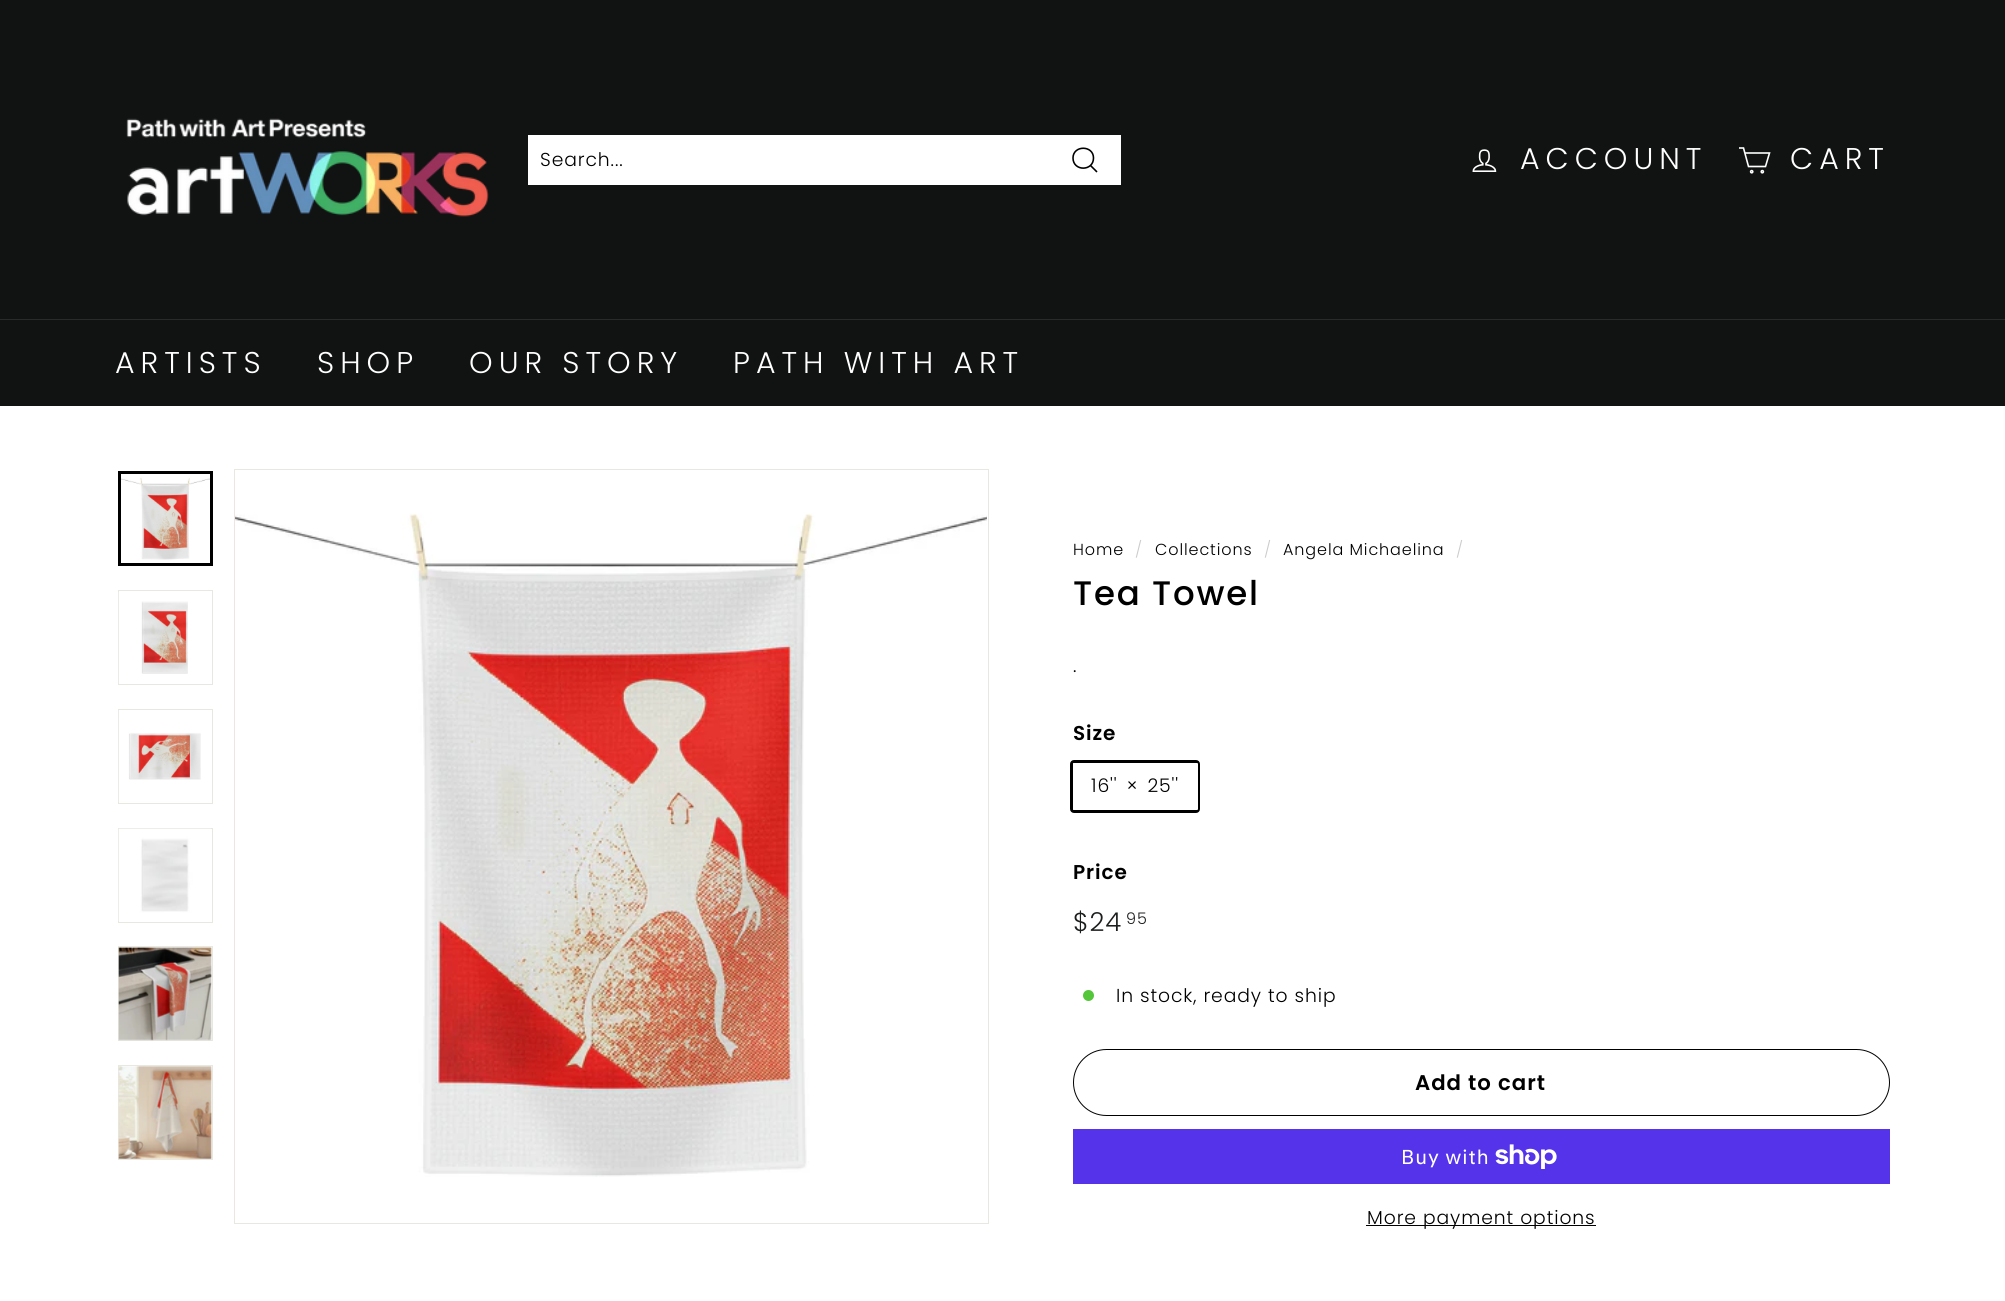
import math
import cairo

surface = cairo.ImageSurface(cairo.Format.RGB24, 2005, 1301)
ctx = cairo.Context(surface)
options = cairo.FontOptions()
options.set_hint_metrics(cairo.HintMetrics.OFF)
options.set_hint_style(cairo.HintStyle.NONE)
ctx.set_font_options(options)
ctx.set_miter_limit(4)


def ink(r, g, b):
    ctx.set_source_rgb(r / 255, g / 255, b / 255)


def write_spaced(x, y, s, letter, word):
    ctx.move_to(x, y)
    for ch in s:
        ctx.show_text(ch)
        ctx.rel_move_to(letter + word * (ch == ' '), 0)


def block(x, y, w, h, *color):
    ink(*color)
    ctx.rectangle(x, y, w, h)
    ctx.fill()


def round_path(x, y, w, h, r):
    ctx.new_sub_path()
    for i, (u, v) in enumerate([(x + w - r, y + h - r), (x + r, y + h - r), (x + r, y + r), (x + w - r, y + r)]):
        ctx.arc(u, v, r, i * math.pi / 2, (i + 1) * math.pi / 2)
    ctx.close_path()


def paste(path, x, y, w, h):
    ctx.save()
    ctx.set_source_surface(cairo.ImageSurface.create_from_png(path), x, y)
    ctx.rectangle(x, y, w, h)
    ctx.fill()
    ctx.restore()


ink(255, 255, 255)
ctx.paint()
block(0, 0, 2005, 319, 17, 18, 18)
paste("pic1.png", 126, 118, 363, 99)
block(528, 135, 593, 50, 255, 255, 255)
ctx.select_font_face("Poppins Light")
ctx.set_font_size(18.75)
ink(0, 0, 0)
write_spaced(540, 166, "Search...", 0.9, 0)
ctx.new_path()
ctx.move_to(1093.5, 158)
ctx.curve_to(1093.5, 171.5, 1073, 171.5, 1073, 158)
ctx.curve_to(1073, 145, 1093.5, 145, 1093.5, 158)
ctx.close_path()
ctx.move_to(1097, 172)
ctx.line_to(1090.5, 165.5)
ctx.set_line_width(1.6)
ctx.stroke()
paste("pic2.png", 1472, 149, 25, 23)
ctx.set_font_size(30)
ink(255, 255, 255)
write_spaced(1520, 169, "ACCOUNT", 6, 0)
ctx.new_path()
ctx.move_to(1745, 153)
ctx.line_to(1769.5, 153)
ctx.line_to(1765.5, 166.5)
ctx.line_to(1748.5, 166.5)
ctx.line_to(1743.5, 148)
ctx.line_to(1739, 148)
ctx.stroke()
ctx.arc(1751.7, 171.7, 1.1, 0, 2 * math.pi)
ctx.stroke()
ctx.arc(1762.3, 171.7, 1.1, 0, 2 * math.pi)
ctx.stroke()
write_spaced(1790, 169, "CART", 6, 0)
block(0, 319, 2005, 1, 41, 42, 42)
block(0, 320, 2005, 86, 17, 18, 18)
ink(255, 255, 255)
write_spaced(115, 373, "ARTISTS", 6, 0)
write_spaced(317, 373, "SHOP", 6, 0)
write_spaced(469, 373, "OUR STORY", 6, 0)
write_spaced(733, 373, "PATH WITH ART", 6, 0)
paste("pic3.png", 121, 474, 89, 89)
ctx.rectangle(119.5, 472.5, 92, 92)
ink(0, 0, 0)
ctx.set_line_width(3)
ctx.stroke()
ctx.rectangle(118.5, 590.5, 94, 94)
ink(232, 232, 225)
ctx.set_line_width(1)
ctx.stroke()
paste("pic4.png", 118, 592, 70, 92)
ctx.rectangle(118.5, 709.5, 94, 94)
ctx.stroke()
paste("pic5.png", 118, 710, 83, 92)
ctx.rectangle(118.5, 828.5, 94, 94)
ctx.stroke()
paste("pic6.png", 118, 828, 93, 93)
ctx.rectangle(118.5, 946.5, 94, 94)
ctx.stroke()
paste("pic7.png", 118, 947, 94, 94)
ctx.rectangle(118.5, 1065.5, 94, 94)
ctx.stroke()
paste("pic8.png", 118, 1066, 94, 93)
ctx.rectangle(234.5, 469.5, 754, 754)
ctx.stroke()
paste("pic9.png", 235, 513, 752, 664)
ctx.set_font_size(16)
ink(0, 0, 0)
write_spaced(1073, 555, "Home", 0.9, 0)
ink(204, 204, 204)
write_spaced(1135, 555, "/", 0.9, 0)
ink(0, 0, 0)
write_spaced(1155, 555, "Collections", 0.9, 0)
ink(204, 204, 204)
write_spaced(1264, 555, "/", 0.9, 0)
ink(0, 0, 0)
write_spaced(1283, 555, "Angela Michaelina", 0.9, 0)
ink(204, 204, 204)
write_spaced(1456, 555, "/", 0.9, 0)
ctx.select_font_face("Poppins Medium")
ctx.set_font_size(34)
ink(0, 0, 0)
write_spaced(1073, 605, "Tea Towel", 1.75, 0)
ctx.select_font_face("Poppins Light")
ctx.set_font_size(18.75)
write_spaced(1073, 672, ".", 0.9, 0)
ctx.select_font_face("Poppins SemiBold")
ctx.set_font_size(20)
write_spaced(1073, 740, "Size", 0.9, 0)
round_path(1071.5, 761.5, 127, 50, 2.5)
ctx.set_line_width(3)
ctx.stroke()
ink(255, 255, 255)
round_path(1073, 763, 125, 47, 1)
ctx.fill()
ctx.select_font_face("Poppins Light")
ctx.set_font_size(18.75)
ink(0, 0, 0)
write_spaced(1091, 792, "16'' × 25''", 0.9, 3)
ctx.select_font_face("Poppins SemiBold")
ctx.set_font_size(20)
write_spaced(1073, 879, "Price", 0.9, 0)
ctx.select_font_face("Poppins Light")
ctx.set_font_size(26)
ink(28, 29, 29)
write_spaced(1073, 931, "$24", 0.9, 0)
ctx.set_font_size(16)
write_spaced(1126, 924, "95", 0.9, 0)
ink(84, 198, 58)
ctx.new_path()
ctx.arc(1088.5, 995.5, 5.5, 0, 2 * math.pi)
ctx.fill()
ctx.set_font_size(18.75)
ink(0, 0, 0)
write_spaced(1116, 1002, "In stock, ready to ship", 0.9, 0)
round_path(1073.5, 1049.5, 816, 66, 33)
ctx.set_line_width(1)
ctx.stroke()
ctx.select_font_face("Poppins SemiBold")
ctx.set_font_size(21.25)
write_spaced(1415, 1090, "Add to cart", 1, 0)
block(1073, 1129, 817, 55, 84, 51, 235)
ctx.select_font_face("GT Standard")
ctx.set_font_size(20)
ink(255, 255, 255)
write_spaced(1401, 1164, "Buy with", 0.9, 0)
paste("pic10.png", 1495, 1144, 62, 25)
block(1366, 1225, 230, 1, 0, 0, 0)
ctx.select_font_face("Poppins Light")
ctx.set_font_size(18.75)
write_spaced(1367, 1224, "More payment options", 0.9, 0)
surface.write_to_png("screenshot.png")
